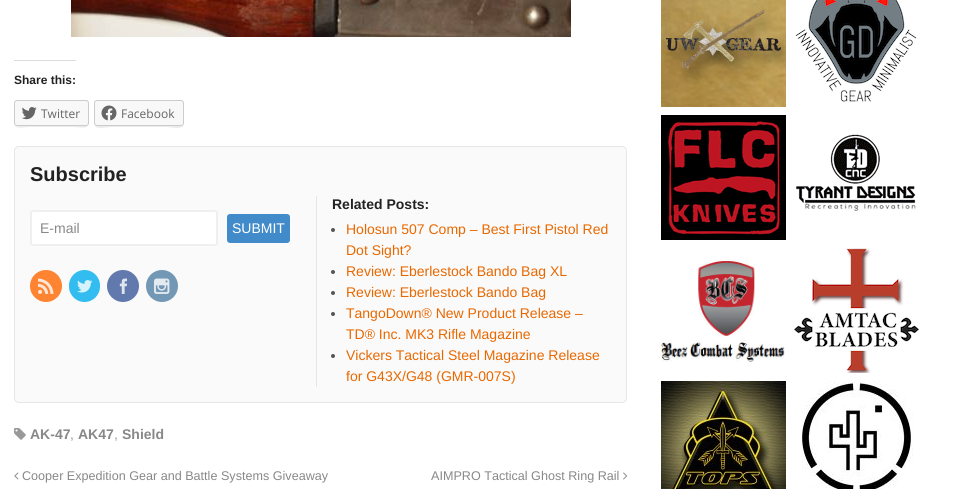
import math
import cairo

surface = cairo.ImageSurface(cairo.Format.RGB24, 973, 489)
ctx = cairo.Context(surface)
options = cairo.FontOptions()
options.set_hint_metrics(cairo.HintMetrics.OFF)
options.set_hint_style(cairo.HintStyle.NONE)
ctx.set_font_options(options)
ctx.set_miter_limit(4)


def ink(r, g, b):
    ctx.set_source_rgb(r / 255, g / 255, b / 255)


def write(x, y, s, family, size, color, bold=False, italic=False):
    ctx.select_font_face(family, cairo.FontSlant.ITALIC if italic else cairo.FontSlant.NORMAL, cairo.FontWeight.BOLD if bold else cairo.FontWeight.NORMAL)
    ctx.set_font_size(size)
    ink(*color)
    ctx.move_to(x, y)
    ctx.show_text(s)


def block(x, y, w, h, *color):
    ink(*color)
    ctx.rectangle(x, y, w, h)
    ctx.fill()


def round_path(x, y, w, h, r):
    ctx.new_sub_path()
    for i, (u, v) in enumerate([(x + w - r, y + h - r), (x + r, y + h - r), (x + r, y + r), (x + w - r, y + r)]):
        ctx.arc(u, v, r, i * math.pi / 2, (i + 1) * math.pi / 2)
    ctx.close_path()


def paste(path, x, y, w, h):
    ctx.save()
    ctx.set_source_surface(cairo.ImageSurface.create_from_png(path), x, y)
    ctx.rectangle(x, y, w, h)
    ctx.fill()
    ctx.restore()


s1 = dict(family="Liberation Sans", size=12, color=(34, 34, 34), bold=True)
s2 = dict(family="Open Sans", size=12, color=(101, 101, 101))
s3 = dict(family="Liberation Sans", size=20, color=(34, 34, 34), bold=True)
s4 = dict(family="Liberation Sans", size=14, color=(136, 136, 136))
s5 = dict(family="Liberation Sans", size=14, color=(255, 255, 255))
s6 = dict(family="Liberation Sans", size=14, color=(34, 34, 34), bold=True)
s7 = dict(family="Liberation Sans", size=14, color=(232, 104, 0))
s8 = dict(family="Liberation Sans", size=14, color=(136, 136, 136), bold=True)
s9 = dict(family="Liberation Sans", size=14, color=(153, 153, 153))
s10 = dict(family="Liberation Sans", size=12.6, color=(136, 136, 136))

ink(255, 255, 255)
ctx.paint()
paste("pic1.png", 71, 0, 500, 37)
block(14, 60, 62, 1, 221, 221, 221)
write(14, 84, "Share this:", **s1)
ink(235, 235, 235)
ctx.new_path()
ctx.move_to(14, 123)
ctx.curve_to(14, 130, 24, 127, 28, 127)
ctx.line_to(74, 127)
ctx.curve_to(79, 127, 89, 130, 89, 123)
ctx.curve_to(89, 125, 88, 126, 86, 126)
ctx.line_to(17, 126)
ctx.curve_to(15, 126, 14, 125, 14, 123)
ctx.close_path()
ctx.fill()
ink(248, 248, 248)
round_path(14.5, 100.5, 74, 25, 2.5)
ctx.fill_preserve()
ink(204, 204, 204)
ctx.set_line_width(1)
ctx.stroke()
paste("pic2.png", 21, 107, 16, 13)
write(41, 118, "Twitter", **s2)
ink(235, 235, 235)
ctx.new_path()
ctx.move_to(94, 123)
ctx.curve_to(94, 131, 107, 127, 111, 127)
ctx.line_to(167, 127)
ctx.curve_to(171, 127, 184, 131, 184, 123)
ctx.curve_to(184, 125, 183, 126, 181, 126)
ctx.line_to(97, 126)
ctx.curve_to(95, 126, 94, 125, 94, 123)
ctx.close_path()
ctx.fill()
ink(248, 248, 248)
round_path(94.5, 100.5, 89, 25, 2.5)
ctx.fill_preserve()
ink(204, 204, 204)
ctx.stroke()
paste("pic3.png", 101, 105, 16, 16)
write(121, 118, "Facebook", **s2)
ink(250, 250, 250)
round_path(14.5, 146.5, 612, 256, 4.5)
ctx.fill_preserve()
ink(230, 230, 230)
ctx.stroke()
write(30, 181, "Subscribe", **s3)
ink(255, 255, 255)
round_path(31, 211, 186, 34, 2)
ctx.fill_preserve()
ink(239, 239, 239)
ctx.set_line_width(2)
ctx.stroke()
write(40, 233, "E-mail", **s4)
ink(66, 139, 202)
round_path(227, 214, 63, 29, 3)
ctx.fill()
write(232, 233, "SUBMIT", **s5)
ink(254, 132, 50)
ctx.new_path()
ctx.arc(46, 286, 16, 0, 2 * math.pi)
ctx.fill()
paste("pic4.png", 38, 278, 16, 16)
ink(50, 188, 240)
round_path(69, 270, 31, 32, 15.5)
ctx.fill()
paste("pic5.png", 77, 280, 16, 13)
ink(97, 121, 172)
ctx.arc(123, 286, 16, 0, 2 * math.pi)
ctx.fill()
paste("pic6.png", 119, 278, 8, 16)
ink(115, 152, 181)
ctx.arc(162, 286, 16, 0, 2 * math.pi)
ctx.fill()
paste("pic7.png", 154, 278, 16, 16)
block(316, 196, 1, 191, 230, 230, 230)
write(332, 209, "Related Posts:", **s6)
ink(85, 85, 85)
ctx.new_path()
ctx.arc(333, 230, 2, 0, 2 * math.pi)
ctx.fill()
write(346, 234, "Holosun 507 Comp – Best First Pistol Red", **s7)
write(346, 255, "Dot Sight?", **s7)
ink(85, 85, 85)
ctx.new_path()
ctx.arc(333, 272, 2, 0, 2 * math.pi)
ctx.fill()
write(346, 276, "Review: Eberlestock Bando Bag XL", **s7)
ink(85, 85, 85)
ctx.new_path()
ctx.arc(333, 293, 2, 0, 2 * math.pi)
ctx.fill()
write(346, 297, "Review: Eberlestock Bando Bag", **s7)
ink(85, 85, 85)
ctx.new_path()
ctx.arc(333, 314, 2, 0, 2 * math.pi)
ctx.fill()
write(346, 318, "TangoDown® New Product Release –", **s7)
write(346, 339, "TD® Inc. MK3 Rifle Magazine", **s7)
ink(85, 85, 85)
ctx.new_path()
ctx.arc(333, 356, 2, 0, 2 * math.pi)
ctx.fill()
write(346, 360, "Vickers Tactical Steel Magazine Release", **s7)
write(346, 381, "for G43X/G48 (GMR-007S)", **s7)
paste("pic8.png", 14, 428, 12, 12)
write(30, 439, "AK-47", **s8)
write(70, 439, ",", **s9)
write(78, 439, "AK47", **s8)
write(114, 439, ",", **s9)
write(122, 439, "Shield", **s8)
paste("pic9.png", 14, 472, 5, 8)
write(22, 480, "Cooper Expedition Gear and Battle Systems Giveaway", **s10)
write(431, 480, "AIMPRO Tactical Ghost Ring Rail", **s10)
paste("pic10.png", 623, 472, 5, 8)
paste("pic11.png", 661, 0, 125, 107)
paste("pic12.png", 795, 0, 122, 102)
paste("pic13.png", 661, 115, 125, 125)
paste("pic14.png", 796, 134, 120, 77)
paste("pic15.png", 661, 259, 124, 103)
paste("pic16.png", 794, 248, 125, 125)
paste("pic17.png", 661, 381, 125, 108)
paste("pic18.png", 802, 381, 112, 108)
surface.write_to_png("screenshot.png")
